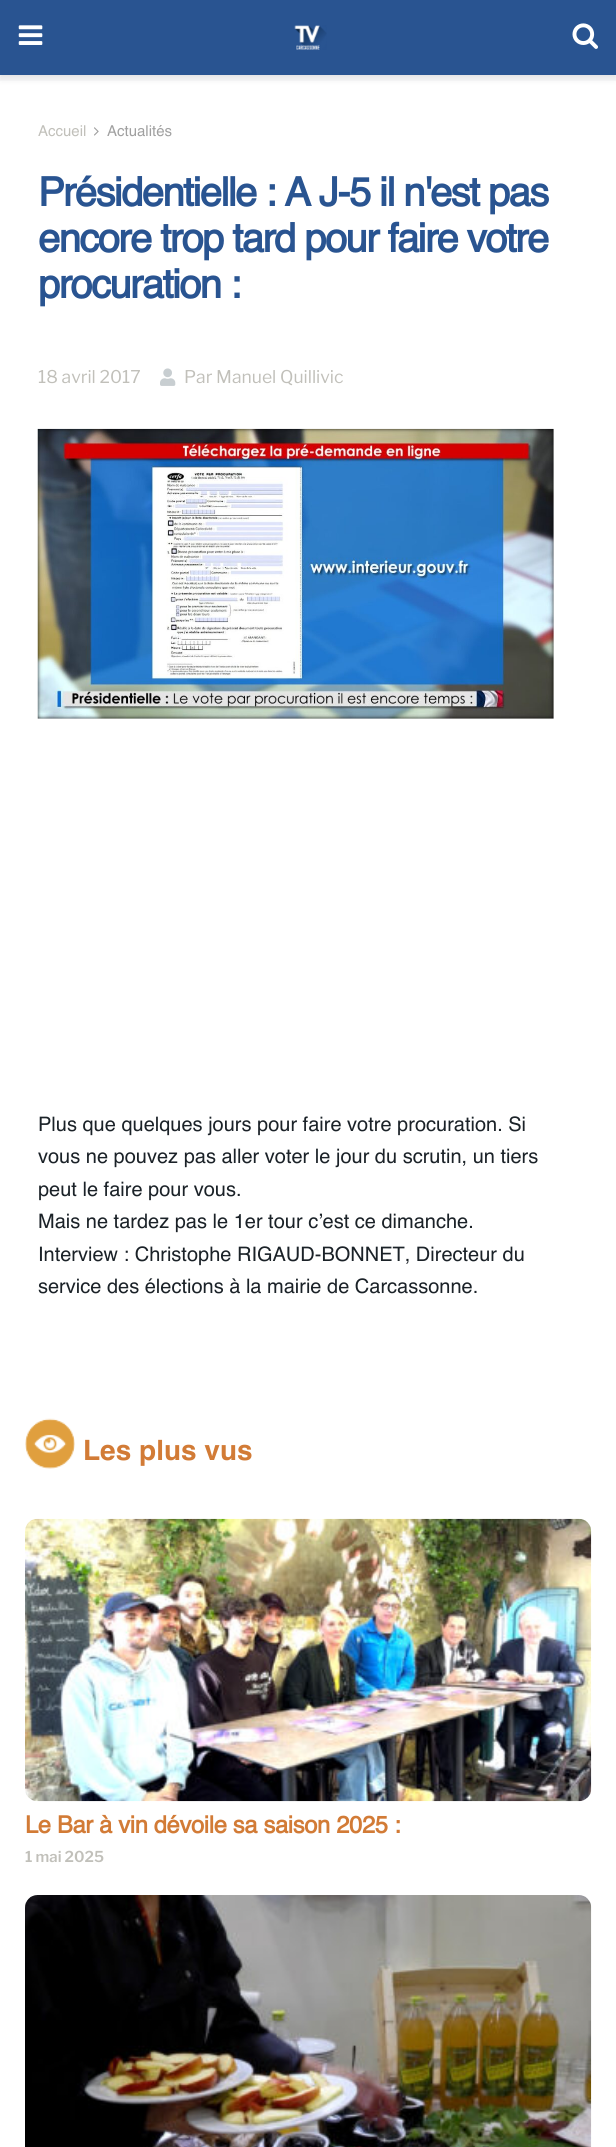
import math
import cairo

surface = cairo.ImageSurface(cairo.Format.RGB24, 616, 2147)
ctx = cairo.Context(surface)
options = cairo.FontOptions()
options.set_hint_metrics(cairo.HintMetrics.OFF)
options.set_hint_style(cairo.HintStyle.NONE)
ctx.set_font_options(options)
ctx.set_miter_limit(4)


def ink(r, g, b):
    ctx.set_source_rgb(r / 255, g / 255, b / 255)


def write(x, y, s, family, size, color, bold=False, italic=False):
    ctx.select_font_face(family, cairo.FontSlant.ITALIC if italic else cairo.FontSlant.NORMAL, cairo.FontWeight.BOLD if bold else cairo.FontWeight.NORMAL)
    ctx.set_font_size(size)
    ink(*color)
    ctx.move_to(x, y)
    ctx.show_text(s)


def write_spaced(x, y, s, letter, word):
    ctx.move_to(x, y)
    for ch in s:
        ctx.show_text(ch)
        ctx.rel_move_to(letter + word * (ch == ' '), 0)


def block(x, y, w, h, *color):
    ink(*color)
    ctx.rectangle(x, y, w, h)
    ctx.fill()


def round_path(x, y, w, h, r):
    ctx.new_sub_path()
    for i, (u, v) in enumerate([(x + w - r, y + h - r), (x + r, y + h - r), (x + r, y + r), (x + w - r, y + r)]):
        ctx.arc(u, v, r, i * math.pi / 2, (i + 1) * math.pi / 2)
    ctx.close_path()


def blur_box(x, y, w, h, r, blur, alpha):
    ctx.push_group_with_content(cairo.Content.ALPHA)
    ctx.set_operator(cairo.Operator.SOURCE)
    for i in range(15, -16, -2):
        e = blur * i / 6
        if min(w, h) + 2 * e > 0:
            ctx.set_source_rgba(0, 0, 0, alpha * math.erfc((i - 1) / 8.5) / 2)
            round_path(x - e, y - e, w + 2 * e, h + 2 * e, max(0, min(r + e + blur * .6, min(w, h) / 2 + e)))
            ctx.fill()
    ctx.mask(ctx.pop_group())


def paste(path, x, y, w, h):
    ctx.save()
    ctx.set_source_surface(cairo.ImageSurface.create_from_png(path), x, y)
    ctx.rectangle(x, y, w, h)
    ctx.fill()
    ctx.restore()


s1 = dict(family="Helvetica", size=15, color=(193, 192, 186))
s2 = dict(family="Helvetica", size=15, color=(160, 160, 160))
s3 = dict(family="Libre Franklin", size=17.5, color=(193, 192, 186))
s4 = dict(family="Helvetica", size=20, color=(27, 34, 40))
s5 = dict(family="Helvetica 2", size=28, color=(210, 123, 54), bold=True)
s6 = dict(family="Libre Franklin SemiBold", size=15, color=(193, 192, 186))

ink(249, 249, 250)
ctx.paint()
block(0, 81, 616, 2066, 255, 255, 255)
ink(0, 0, 0)
blur_box(0, 3, 616, 75, 0, 4, 0.1)
block(0, 0, 616, 75, 41, 84, 145)
paste("pic1.png", 18, 25, 25, 20)
paste("pic2.png", 294, 25, 33, 25)
paste("pic3.png", 572, 23, 26, 26)
write(38, 136, "Accueil", **s1)
paste("pic4.png", 94, 127, 5, 9)
write(107, 136, "Actualités", **s2)
ctx.select_font_face("Helvetica", cairo.FontSlant.NORMAL, cairo.FontWeight.BOLD)
ctx.set_font_size(40)
ink(41, 84, 145)
write_spaced(38, 206, "Présidentielle : A J-5 il n'est pas", -1.6, 0)
write_spaced(38, 252, "encore trop tard pour faire votre", -1.6, 0)
write_spaced(38, 298, "procuration :", -1.6, 0)
write(38, 383, "18 avril 2017", **s3)
paste("pic5.png", 160, 368, 16, 18)
write(184, 383, "Par Manuel Quillivic", **s3)
block(38, 429, 516, 290, 247, 247, 247)
paste("pic6.png", 37, 428, 517, 291)
write(38, 1131, "Plus que quelques jours pour faire votre procuration. Si", **s4)
write(38, 1163, "vous ne pouvez pas aller voter le jour du scrutin, un tiers", **s4)
write(38, 1196, "peut le faire pour vous.", **s4)
write(38, 1228, "Mais ne tardez pas le 1er tour c’est ce dimanche.", **s4)
write(38, 1261, "Interview : Christophe RIGAUD-BONNET, Directeur du", **s4)
write(38, 1293, "service des élections à la mairie de Carcassonne.", **s4)
paste("pic7.png", 25, 1418, 50, 51)
write(83, 1460, "Les plus vus", **s5)
paste("pic9.png", 31, 1520, 559, 280)
paste("pic8.png", 25, 1518, 567, 284)
ctx.select_font_face("Helvetica", cairo.FontSlant.NORMAL, cairo.FontWeight.BOLD)
ctx.set_font_size(23.75)
write_spaced(25, 1833, "Le Bar à vin dévoile sa saison 2025 :", -0.35, 0)
write(25, 1862, "1 mai 2025", **s6)
paste("pic10.png", 25, 1895, 567, 252)
surface.write_to_png("screenshot.png")
